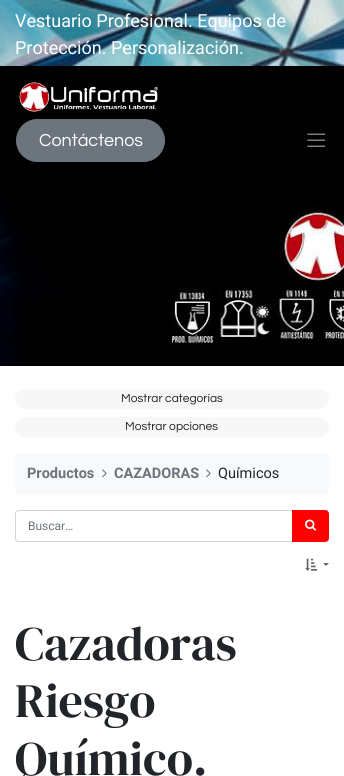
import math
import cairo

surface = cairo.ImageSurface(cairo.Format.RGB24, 344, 776)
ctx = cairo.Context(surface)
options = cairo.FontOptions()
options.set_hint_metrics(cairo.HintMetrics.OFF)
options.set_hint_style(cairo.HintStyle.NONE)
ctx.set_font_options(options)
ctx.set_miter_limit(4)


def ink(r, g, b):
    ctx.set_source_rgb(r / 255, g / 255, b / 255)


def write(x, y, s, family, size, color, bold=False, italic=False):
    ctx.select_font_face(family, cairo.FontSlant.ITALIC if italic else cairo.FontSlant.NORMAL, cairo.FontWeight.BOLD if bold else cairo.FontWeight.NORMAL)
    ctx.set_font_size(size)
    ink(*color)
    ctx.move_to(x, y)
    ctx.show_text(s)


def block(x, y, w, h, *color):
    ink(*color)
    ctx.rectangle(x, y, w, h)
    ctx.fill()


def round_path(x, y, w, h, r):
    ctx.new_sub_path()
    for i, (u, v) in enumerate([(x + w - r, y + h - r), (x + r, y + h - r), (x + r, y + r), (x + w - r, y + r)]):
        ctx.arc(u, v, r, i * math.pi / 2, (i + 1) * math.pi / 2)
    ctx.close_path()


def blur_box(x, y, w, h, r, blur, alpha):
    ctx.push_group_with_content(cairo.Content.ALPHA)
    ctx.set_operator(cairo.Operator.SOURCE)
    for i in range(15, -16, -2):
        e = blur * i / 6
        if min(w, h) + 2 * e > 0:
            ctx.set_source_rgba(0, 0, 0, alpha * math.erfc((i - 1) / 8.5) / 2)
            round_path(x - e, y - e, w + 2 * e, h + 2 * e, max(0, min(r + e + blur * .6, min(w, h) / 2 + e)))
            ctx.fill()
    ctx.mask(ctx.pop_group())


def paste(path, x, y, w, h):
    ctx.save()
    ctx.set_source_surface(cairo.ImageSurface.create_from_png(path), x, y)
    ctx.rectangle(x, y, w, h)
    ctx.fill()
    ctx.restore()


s1 = dict(family="Heebo", size=18, color=(255, 255, 255))
s2 = dict(family="Questrial", size=18, color=(255, 255, 255))
s3 = dict(family="Questrial", size=12, color=(33, 37, 41))
s4 = dict(family="Heebo", size=14.5, color=(108, 117, 125), bold=True)
s5 = dict(family="Heebo", size=14.5, color=(33, 37, 41))
s6 = dict(family="Heebo", size=12, color=(108, 117, 125))
s7 = dict(family="DM Serif Display", size=48, color=(33, 37, 41))

ink(255, 255, 255)
ctx.paint()
paste("pic1.png", 0, 0, 344, 66)
write(15, 27, "Vestuario Profesional. Equipos de", **s1)
write(15, 54, "Protección. Personalización.", **s1)
paste("pic4.png", 0, 172, 344, 194)
ink(0, 0, 0)
blur_box(0, 68, 344, 106, 0, 2, 0.07)
block(0, 66, 344, 106, 0, 0, 0)
paste("pic2.png", 19, 82, 139, 30)
ink(108, 117, 125)
round_path(16.5, 119.5, 148, 42, 21)
ctx.fill_preserve()
ctx.set_line_width(1)
ctx.stroke()
write(39, 146, "Contáctenos", **s2)
paste("pic3.png", 307, 133, 19, 14)
ink(247, 247, 247)
round_path(15, 389, 314, 20, 10)
ctx.fill()
write(121, 402, "Mostrar categorías", **s3)
ink(247, 247, 247)
round_path(15, 417, 314, 20, 10)
ctx.fill()
write(125, 430, "Mostrar opciones", **s3)
ink(248, 249, 250)
round_path(15, 453, 314, 41, 4)
ctx.fill()
write(27, 478, "Productos", **s4)
paste("pic5.png", 102, 469, 5, 9)
write(114, 478, "CAZADORAS", **s4)
paste("pic5.png", 206, 469, 5, 9)
write(218, 478, "Químicos", **s5)
ctx.new_path()
ctx.move_to(19, 510.5)
ctx.line_to(292.5, 510.5)
ctx.line_to(292.5, 541.5)
ctx.line_to(19, 541.5)
ctx.curve_to(17, 541.5, 15.5, 540, 15.5, 538)
ctx.line_to(15.5, 514)
ctx.curve_to(15.5, 512, 17, 510.5, 19, 510.5)
ctx.close_path()
ink(206, 212, 218)
ctx.stroke()
write(28, 530, "Buscar…", **s6)
ink(255, 0, 0)
ctx.new_path()
ctx.move_to(292.5, 510.5)
ctx.line_to(325, 510.5)
ctx.curve_to(327, 510.5, 328.5, 512, 328.5, 514)
ctx.line_to(328.5, 538)
ctx.curve_to(328.5, 540, 327, 541.5, 325, 541.5)
ctx.line_to(292.5, 541.5)
ctx.close_path()
ctx.fill_preserve()
ctx.stroke()
paste("pic6.png", 305, 519, 12, 12)
paste("pic7.png", 305, 558, 12, 13)
ink(100, 102, 105)
ctx.new_path()
ctx.move_to(323, 563)
ctx.line_to(329, 563)
ctx.line_to(326, 566)
ctx.close_path()
ctx.fill()
write(15, 660, "Cazadoras", **s7)
write(15, 717, "Riesgo", **s7)
write(15, 775, "Químico.", **s7)
surface.write_to_png("screenshot.png")
